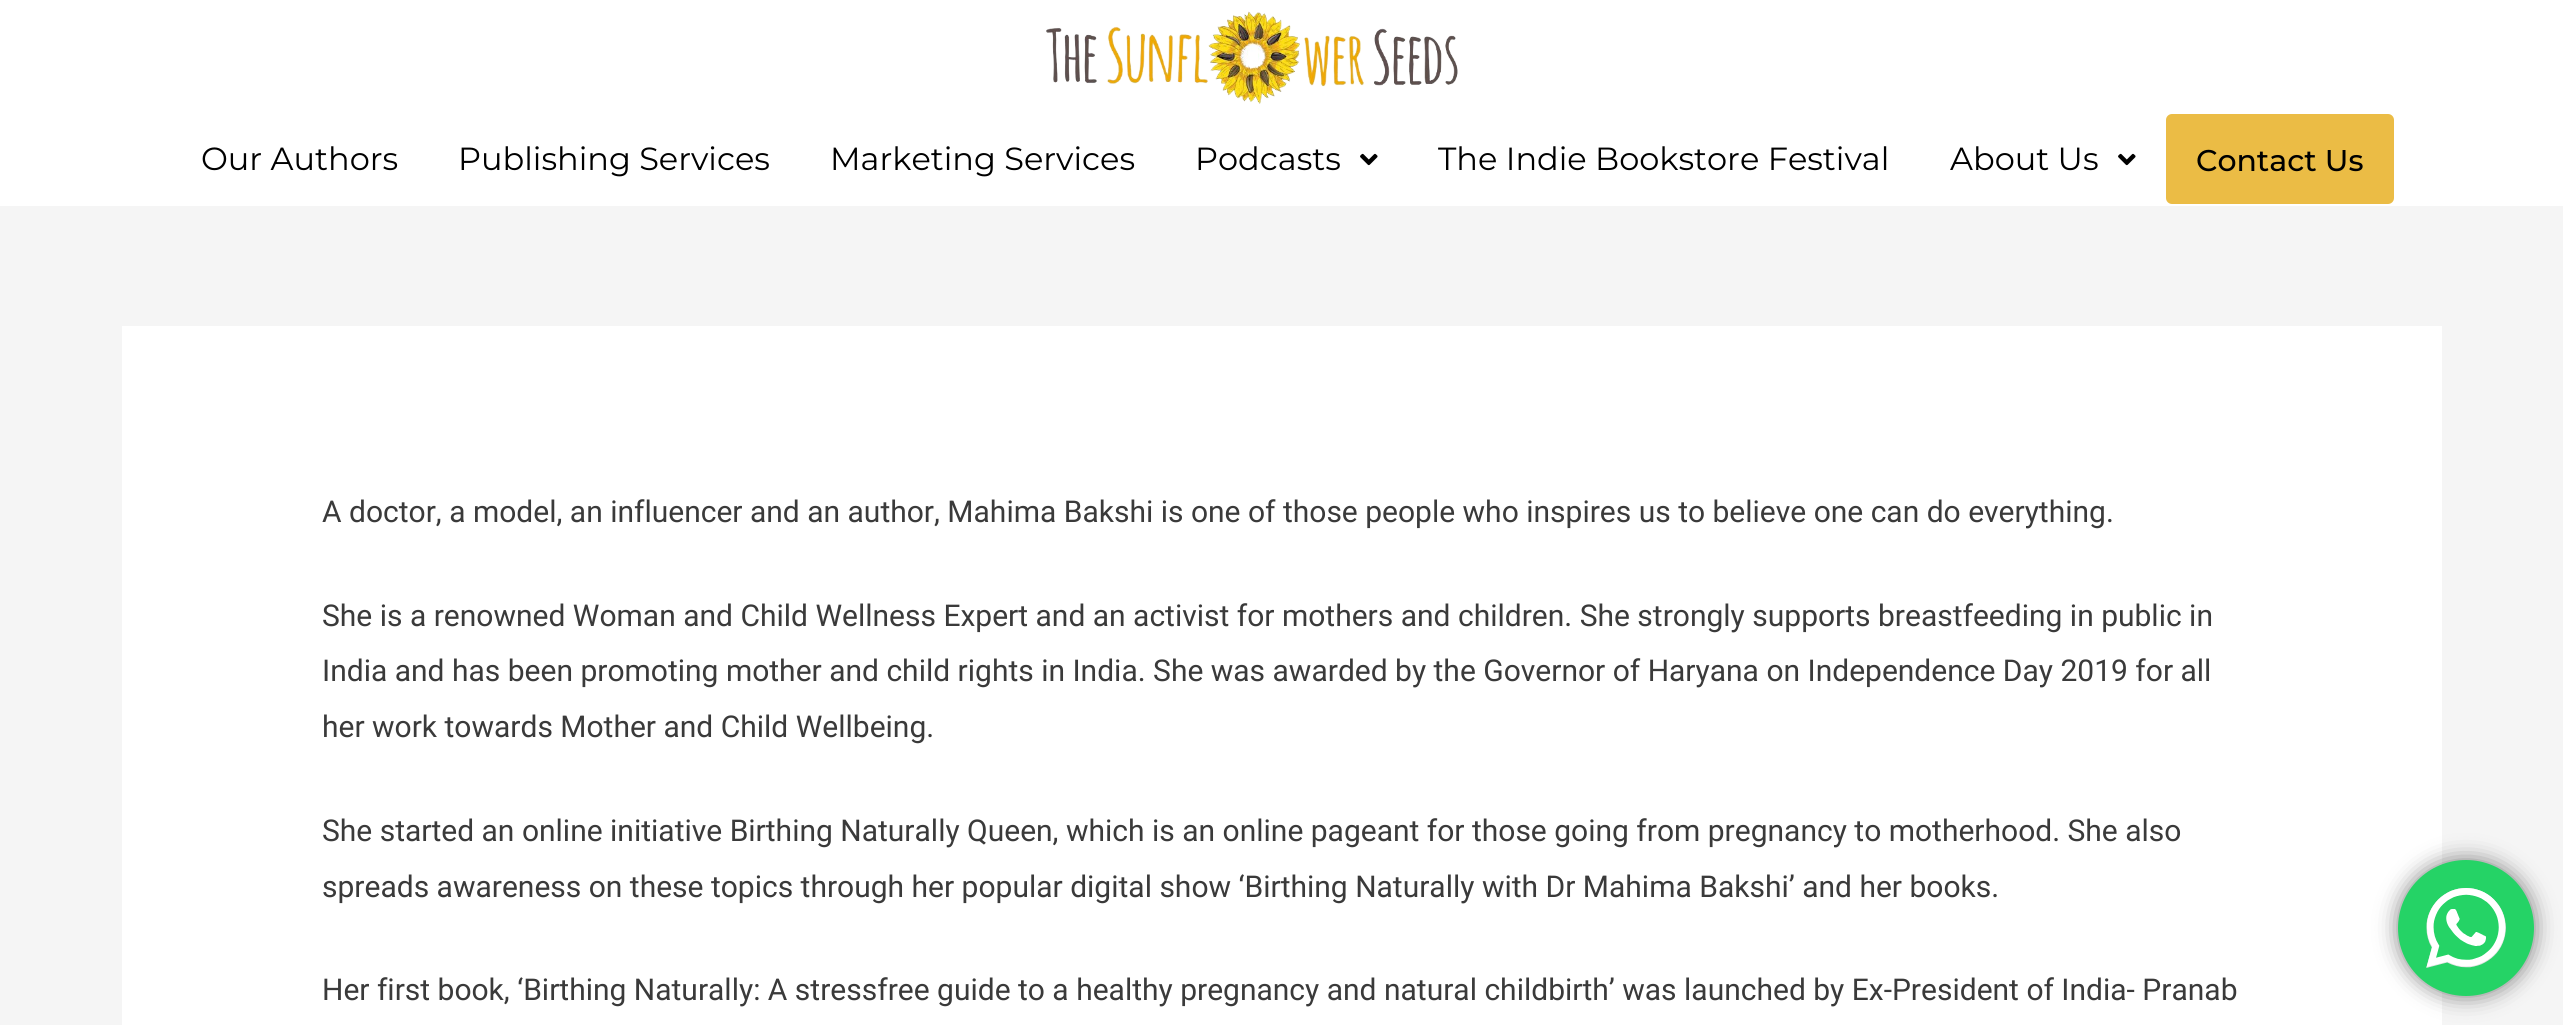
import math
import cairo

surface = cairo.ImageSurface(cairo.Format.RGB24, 2563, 1025)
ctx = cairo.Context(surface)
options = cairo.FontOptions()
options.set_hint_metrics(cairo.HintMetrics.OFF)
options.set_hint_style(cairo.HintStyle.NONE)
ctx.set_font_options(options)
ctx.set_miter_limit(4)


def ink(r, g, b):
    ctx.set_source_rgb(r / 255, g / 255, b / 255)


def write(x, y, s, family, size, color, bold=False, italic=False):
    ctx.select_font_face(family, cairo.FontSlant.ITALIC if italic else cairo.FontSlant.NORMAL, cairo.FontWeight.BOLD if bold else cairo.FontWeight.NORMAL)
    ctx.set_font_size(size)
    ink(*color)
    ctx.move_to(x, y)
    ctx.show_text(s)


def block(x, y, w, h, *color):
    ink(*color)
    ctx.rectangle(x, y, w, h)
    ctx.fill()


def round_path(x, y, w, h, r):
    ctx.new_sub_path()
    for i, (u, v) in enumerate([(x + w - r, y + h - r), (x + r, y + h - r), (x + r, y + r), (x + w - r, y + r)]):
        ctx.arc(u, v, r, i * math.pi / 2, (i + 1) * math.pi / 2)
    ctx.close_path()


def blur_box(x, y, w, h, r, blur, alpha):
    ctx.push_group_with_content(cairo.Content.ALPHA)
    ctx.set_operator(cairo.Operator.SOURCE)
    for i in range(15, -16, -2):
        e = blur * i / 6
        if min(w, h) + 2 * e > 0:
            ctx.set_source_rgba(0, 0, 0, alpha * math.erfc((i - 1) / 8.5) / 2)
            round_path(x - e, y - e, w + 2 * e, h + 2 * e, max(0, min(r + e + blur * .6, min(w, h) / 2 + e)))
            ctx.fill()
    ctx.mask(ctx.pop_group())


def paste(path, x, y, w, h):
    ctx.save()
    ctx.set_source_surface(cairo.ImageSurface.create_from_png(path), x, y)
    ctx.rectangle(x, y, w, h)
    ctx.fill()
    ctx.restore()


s1 = dict(family="Montserrat Thin", size=32, color=(0, 0, 0))
s2 = dict(family="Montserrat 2 Thin", size=30, color=(0, 0, 0))
s3 = dict(family="Roboto", size=30, color=(58, 58, 58))

ink(245, 245, 245)
ctx.paint()
block(0, 0, 2563, 206, 255, 255, 255)
paste("pic1.png", 1046, 11, 412, 93)
write(201, 170, "Our Authors", **s1)
write(458, 170, "Publishing Services", **s1)
write(830, 170, "Marketing Services", **s1)
write(1195, 170, "Podcasts", **s1)
paste("pic2.png", 1360, 153, 18, 13)
write(1438, 170, "The Indie Bookstore Festival", **s1)
write(1950, 170, "About Us", **s1)
paste("pic2.png", 2118, 153, 18, 13)
ink(235, 188, 69)
round_path(2166, 114, 228, 90, 6)
ctx.fill()
write(2196, 171, "Contact Us", **s2)
block(122, 326, 2320, 699, 255, 255, 255)
write(322, 522, "A doctor, a model, an influencer and an author, Mahima Bakshi is one of those people who inspires us to believe one can do everything.", **s3)
write(322, 626, "She is a renowned Woman and Child Wellness Expert and an activist for mothers and children. She strongly supports breastfeeding in public in", **s3)
write(322, 681, "India and has been promoting mother and child rights in India. She was awarded by the Governor of Haryana on Independence Day 2019 for all", **s3)
write(322, 737, "her work towards Mother and Child Wellbeing.", **s3)
write(322, 841, "She started an online initiative Birthing Naturally Queen, which is an online pageant for those going from pregnancy to motherhood. She also", **s3)
write(322, 897, "spreads awareness on these topics through her popular digital show ‘Birthing Naturally with Dr Mahima Bakshi’ and her books.", **s3)
write(322, 1000, "Her first book, ‘Birthing Naturally: A stressfree guide to a healthy pregnancy and natural childbirth’ was launched by Ex-President of India- Pranab", **s3)
ink(0, 0, 0)
blur_box(2398, 860, 136, 136, 68, 11, 0.5)
ink(37, 211, 102)
ctx.arc(2466, 928, 68, 0, 2 * math.pi)
ctx.fill()
paste("pic3.png", 2426, 888, 80, 80)
surface.write_to_png("screenshot.png")
